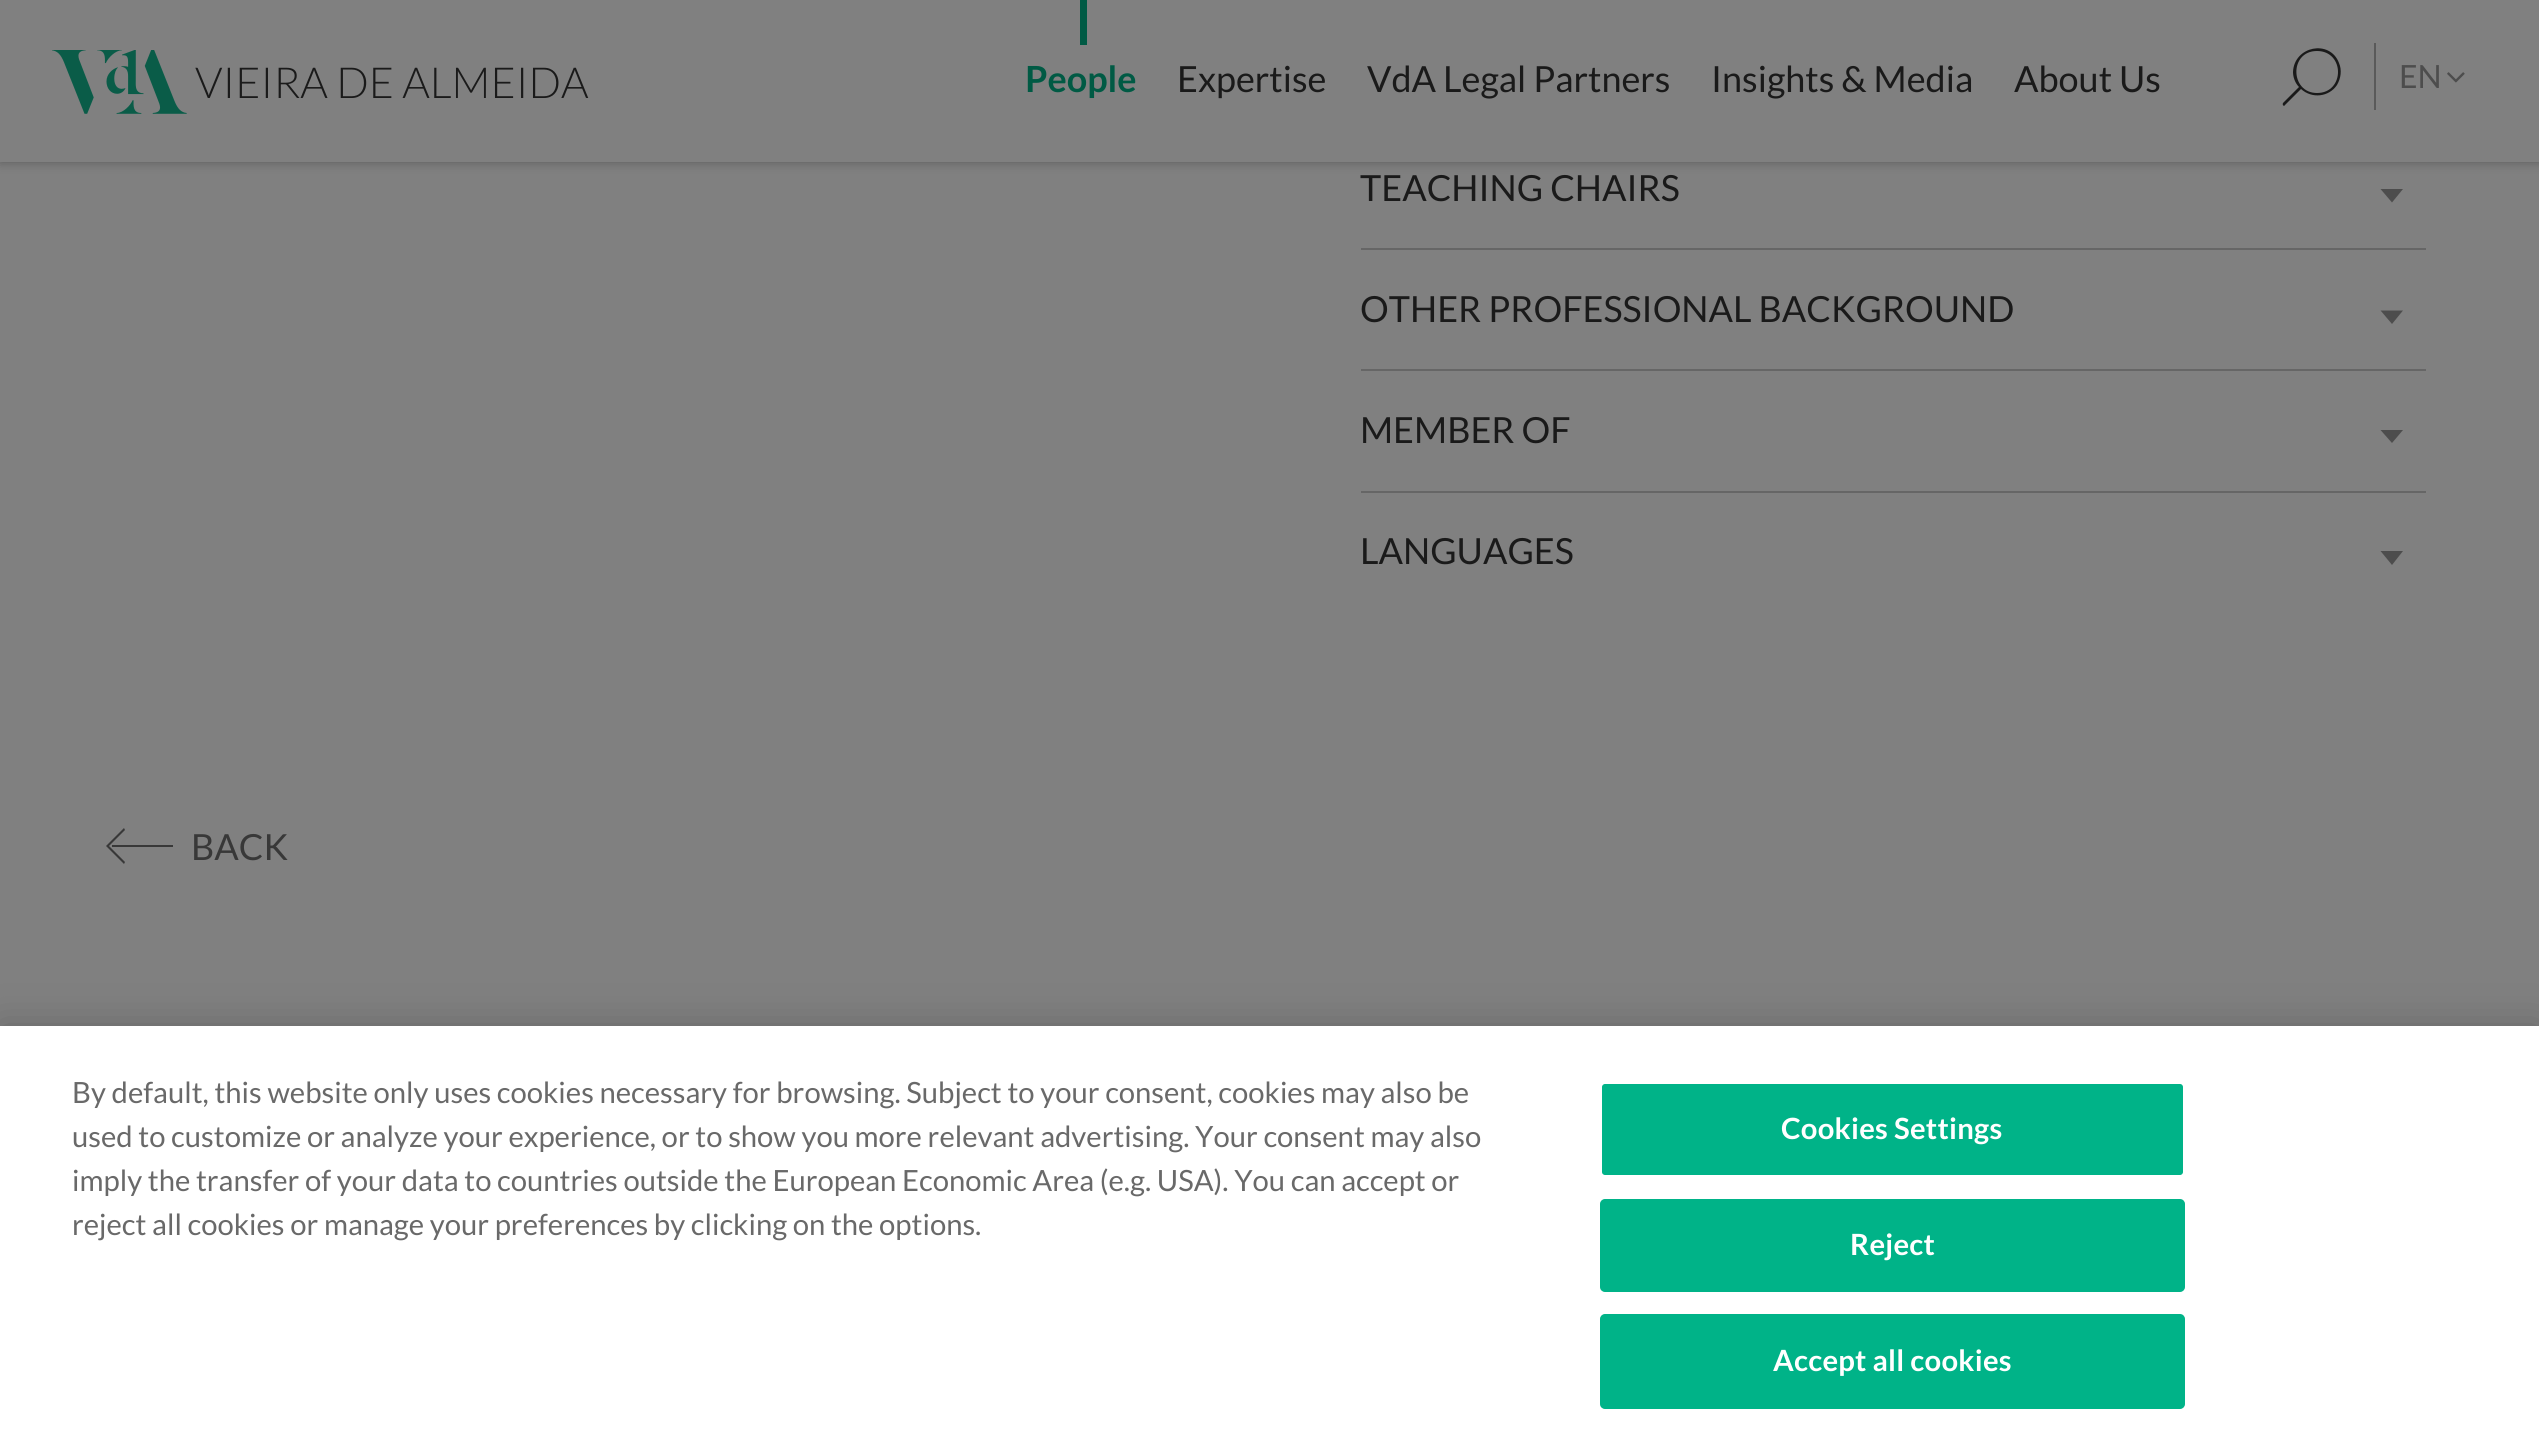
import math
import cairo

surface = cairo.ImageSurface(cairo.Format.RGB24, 2539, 1452)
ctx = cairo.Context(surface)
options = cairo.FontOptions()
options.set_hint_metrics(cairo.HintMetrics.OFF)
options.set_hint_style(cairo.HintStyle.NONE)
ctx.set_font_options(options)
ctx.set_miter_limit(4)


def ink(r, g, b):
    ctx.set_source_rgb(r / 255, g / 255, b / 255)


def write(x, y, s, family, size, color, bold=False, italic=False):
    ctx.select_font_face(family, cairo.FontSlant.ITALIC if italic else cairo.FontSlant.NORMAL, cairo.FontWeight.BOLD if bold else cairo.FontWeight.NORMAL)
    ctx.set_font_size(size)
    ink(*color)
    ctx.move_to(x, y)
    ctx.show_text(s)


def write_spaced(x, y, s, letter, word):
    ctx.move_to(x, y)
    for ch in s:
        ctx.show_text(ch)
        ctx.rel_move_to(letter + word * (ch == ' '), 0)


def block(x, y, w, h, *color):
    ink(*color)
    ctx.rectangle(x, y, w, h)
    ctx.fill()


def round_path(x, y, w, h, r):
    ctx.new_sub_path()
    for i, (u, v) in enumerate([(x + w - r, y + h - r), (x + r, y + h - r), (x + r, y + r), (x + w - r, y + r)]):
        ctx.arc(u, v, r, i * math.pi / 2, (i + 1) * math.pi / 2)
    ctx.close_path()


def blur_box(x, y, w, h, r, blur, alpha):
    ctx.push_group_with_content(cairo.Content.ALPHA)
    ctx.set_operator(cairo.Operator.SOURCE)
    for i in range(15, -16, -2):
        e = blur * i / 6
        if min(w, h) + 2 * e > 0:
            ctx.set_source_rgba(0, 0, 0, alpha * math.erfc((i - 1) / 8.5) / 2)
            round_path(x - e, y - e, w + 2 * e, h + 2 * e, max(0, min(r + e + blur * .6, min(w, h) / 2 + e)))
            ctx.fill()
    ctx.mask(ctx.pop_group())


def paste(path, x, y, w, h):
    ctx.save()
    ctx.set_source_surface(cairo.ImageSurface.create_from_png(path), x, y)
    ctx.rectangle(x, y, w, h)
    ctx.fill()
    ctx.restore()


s1 = dict(family="Lato Light", size=42.75, color=(26, 26, 26))
s2 = dict(family="Lato", size=36, color=(0, 90, 68), bold=True)
s3 = dict(family="Lato", size=36, color=(26, 26, 26))
s4 = dict(family="Lato", size=32, color=(77, 77, 77))
s5 = dict(family="Lato", size=36, color=(56, 56, 56))
s6 = dict(family="Lato", size=29.25, color=(105, 105, 105))

ink(128, 128, 128)
ctx.paint()
ink(0, 0, 0)
blur_box(0, 0, 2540, 162, 0, 5.5, 0.3)
block(0, 0, 2539, 162, 128, 128, 128)
paste("pic1.png", 52, 50, 135, 64)
write(195, 98, "VIEIRA DE ALMEIDA", **s1)
block(1080, 0, 7, 45, 0, 90, 68)
write(1025, 92, "People", **s2)
write(1177, 92, "Expertise", **s3)
write(1367, 92, "VdA Legal Partners", **s3)
write(1711, 92, "Insights & Media", **s3)
write(2014, 92, "About Us", **s3)
ctx.set_fill_rule(cairo.FillRule.EVEN_ODD)
ctx.new_path()
ctx.move_to(2299, 87)
ctx.curve_to(2295, 83, 2293, 77, 2293, 72)
ctx.curve_to(2294, 46, 2330, 39, 2339, 63)
ctx.curve_to(2342, 70, 2341, 78, 2337, 85)
ctx.curve_to(2329, 97, 2312, 99, 2301, 89)
ctx.line_to(2285, 105)
ctx.curve_to(2284, 107, 2282, 105, 2283, 103)
ctx.close_path()
ctx.move_to(2317, 51)
ctx.curve_to(2289, 51, 2290, 93, 2317, 93)
ctx.curve_to(2345, 93, 2345, 51, 2317, 51)
ctx.close_path()
ctx.fill()
block(2374, 43, 2, 67, 90, 90, 90)
write(2399, 88, "EN", **s4)
paste("pic2.png", 2447, 72, 18, 11)
write(1360, 201, "TEACHING CHAIRS", **s3)
ink(77, 77, 77)
ctx.set_fill_rule(cairo.FillRule.WINDING)
ctx.new_path()
ctx.move_to(2380.5, 189)
ctx.line_to(2403, 189)
ctx.line_to(2392, 202.5)
ctx.close_path()
ctx.fill()
block(1361, 248, 1065, 2, 102, 102, 102)
write(1360, 322, "OTHER PROFESSIONAL BACKGROUND", **s3)
ink(77, 77, 77)
ctx.new_path()
ctx.move_to(2380.5, 310.5)
ctx.line_to(2403, 310.5)
ctx.line_to(2392, 324)
ctx.close_path()
ctx.fill()
block(1361, 369, 1065, 2, 102, 102, 102)
write(1360, 443, "MEMBER OF", **s3)
ink(77, 77, 77)
ctx.new_path()
ctx.move_to(2380.5, 430)
ctx.line_to(2403, 430)
ctx.line_to(2392, 443)
ctx.close_path()
ctx.fill()
block(1361, 491, 1065, 2, 102, 102, 102)
write(1360, 564, "LANGUAGES", **s3)
ink(77, 77, 77)
ctx.new_path()
ctx.move_to(2380.5, 551)
ctx.line_to(2403, 551)
ctx.line_to(2392, 565)
ctx.close_path()
ctx.fill()
ink(56, 56, 56)
ctx.set_fill_rule(cairo.FillRule.EVEN_ODD)
ctx.new_path()
ctx.move_to(106, 846)
ctx.line_to(124, 828)
ctx.line_to(125, 830)
ctx.line_to(109, 846)
ctx.line_to(125, 862)
ctx.line_to(124, 864)
ctx.close_path()
ctx.move_to(173, 847)
ctx.line_to(112, 847)
ctx.line_to(112, 845)
ctx.line_to(173, 845)
ctx.close_path()
ctx.fill()
write(191, 860, "BACK", **s5)
ink(0, 0, 0)
blur_box(0, 1026, 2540, 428, 0, 20, 0.2)
block(0, 1026, 2539, 426, 255, 255, 255)
write(72, 1103, "By default, this website only uses cookies necessary for browsing. Subject to your consent, cookies may also be", **s6)
write(72, 1147, "used to customize or analyze your experience, or to show you more relevant advertising. Your consent may also", **s6)
write(72, 1191, "imply the transfer of your data to countries outside the European Economic Area (e.g. USA). You can accept or", **s6)
write(72, 1235, "reject all cookies or manage your preferences by clicking on the options.", **s6)
ink(0, 179, 136)
round_path(1601, 1083, 583, 93, 4)
ctx.fill_preserve()
ink(255, 255, 255)
ctx.stroke()
ctx.select_font_face("Lato", cairo.FontSlant.NORMAL, cairo.FontWeight.BOLD)
write_spaced(1781, 1139, "Cookies Settings", 0.25, 0)
ink(0, 179, 136)
round_path(1601, 1200, 583, 91, 4)
ctx.fill_preserve()
ctx.stroke()
ink(255, 255, 255)
write_spaced(1850, 1255, "Reject", 0.25, 0)
ink(0, 179, 136)
round_path(1601, 1315, 583, 93, 4)
ctx.fill_preserve()
ctx.stroke()
ink(255, 255, 255)
write_spaced(1773, 1371, "Accept all cookies", 0.25, 0)
surface.write_to_png("screenshot.png")
